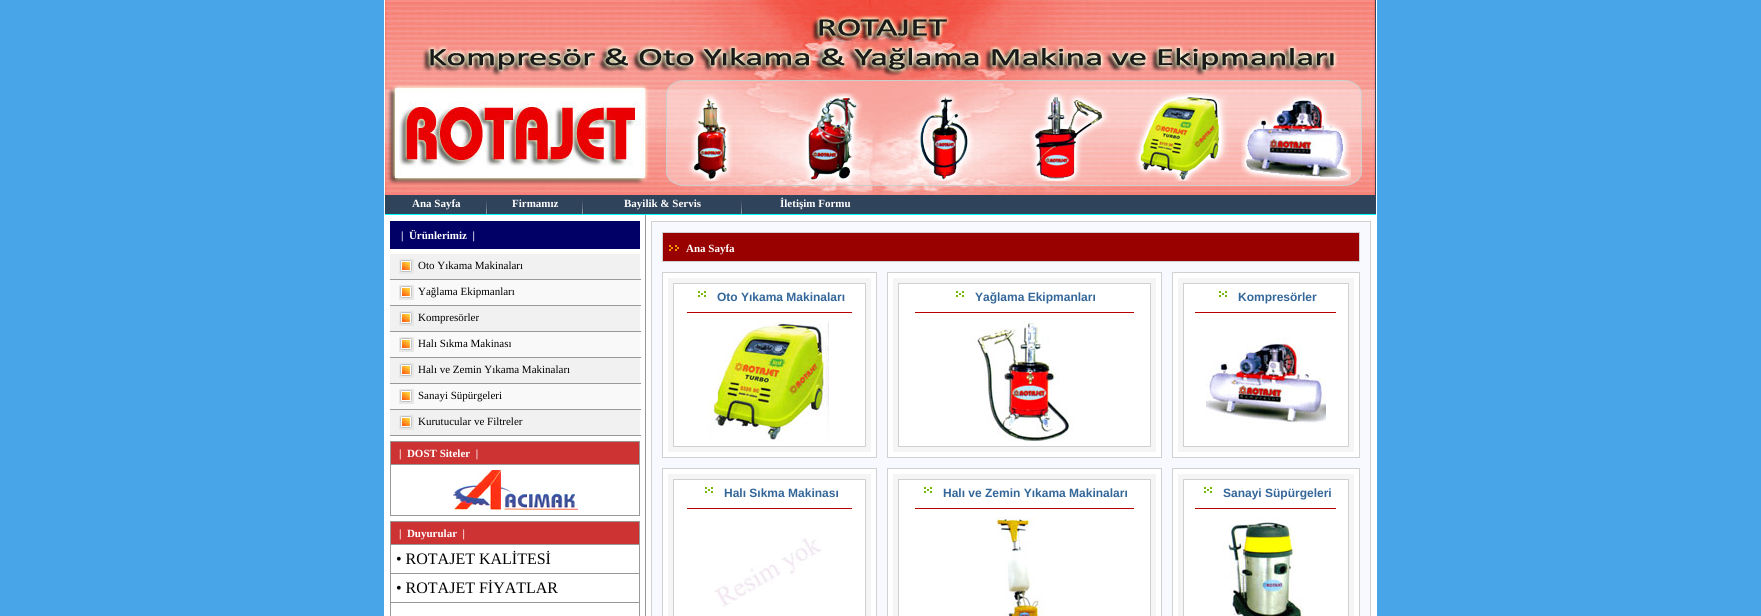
import math
import cairo

surface = cairo.ImageSurface(cairo.Format.RGB24, 1761, 616)
ctx = cairo.Context(surface)
options = cairo.FontOptions()
options.set_hint_metrics(cairo.HintMetrics.OFF)
options.set_hint_style(cairo.HintStyle.NONE)
ctx.set_font_options(options)
ctx.set_miter_limit(4)


def ink(r, g, b):
    ctx.set_source_rgb(r / 255, g / 255, b / 255)


def write(x, y, s, family, size, color, bold=False, italic=False):
    ctx.select_font_face(family, cairo.FontSlant.ITALIC if italic else cairo.FontSlant.NORMAL, cairo.FontWeight.BOLD if bold else cairo.FontWeight.NORMAL)
    ctx.set_font_size(size)
    ink(*color)
    ctx.move_to(x, y)
    ctx.show_text(s)


def block(x, y, w, h, *color):
    ink(*color)
    ctx.rectangle(x, y, w, h)
    ctx.fill()


def paste(path, x, y, w, h):
    ctx.save()
    ctx.set_source_surface(cairo.ImageSurface.create_from_png(path), x, y)
    ctx.rectangle(x, y, w, h)
    ctx.fill()
    ctx.restore()


s1 = dict(family="Liberation Serif", size=11, color=(255, 255, 255), bold=True)
s2 = dict(family="Liberation Serif", size=11, color=(0, 0, 0))
s3 = dict(family="Liberation Serif", size=16, color=(0, 0, 0))
s4 = dict(family="Liberation Sans", size=12, color=(51, 102, 153), bold=True)

ink(72, 165, 232)
ctx.paint()
block(1376, 0, 1, 616, 255, 255, 255)
block(384, 0, 1, 616, 255, 255, 255)
block(385, 0, 991, 214, 47, 67, 91)
paste("pic1.png", 385, 0, 990, 77)
paste("pic2.png", 385, 77, 267, 108)
paste("pic3.png", 652, 77, 25, 99)
paste("pic4.png", 677, 77, 698, 11)
paste("pic5.png", 677, 88, 675, 88)
paste("pic15.png", 667, 176, 708, 19)
paste("pic6.png", 687, 93, 46, 88)
paste("pic7.png", 802, 93, 61, 88)
paste("pic8.png", 913, 93, 61, 88)
paste("pic9.png", 1028, 93, 81, 88)
paste("pic10.png", 1133, 93, 96, 88)
paste("pic11.png", 1241, 93, 110, 88)
paste("pic12.png", 1352, 88, 23, 88)
paste("pic13.png", 385, 185, 267, 10)
paste("pic14.png", 652, 176, 15, 19)
write(412, 207, "Ana Sayfa", **s1)
paste("pic16.png", 486, 199, 2, 15)
write(512, 207, "Firmamız", **s1)
paste("pic16.png", 582, 199, 2, 15)
write(624, 207, "Bayilik & Servis", **s1)
paste("pic16.png", 741, 199, 2, 15)
write(780, 207, "İletişim Formu", **s1)
block(385, 214, 991, 1, 0, 255, 255)
block(385, 215, 991, 401, 255, 255, 255)
block(390, 221, 250, 28, 0, 0, 102)
write(401, 239, "|  Ürünlerimiz  |", **s1)
block(390, 254, 250, 25, 241, 241, 241)
block(390, 279, 251, 1, 153, 153, 153)
paste("pic17.png", 399, 259, 15, 15)
write(418, 269, "Oto Yıkama Makinaları", **s2)
block(390, 280, 250, 25, 249, 249, 249)
block(390, 305, 251, 1, 153, 153, 153)
paste("pic17.png", 399, 285, 15, 15)
write(418, 295, "Yağlama Ekipmanları", **s2)
block(390, 306, 250, 25, 241, 241, 241)
block(390, 331, 251, 1, 153, 153, 153)
paste("pic17.png", 399, 311, 15, 15)
write(418, 321, "Kompresörler", **s2)
block(390, 332, 250, 25, 249, 249, 249)
block(390, 357, 251, 1, 153, 153, 153)
paste("pic17.png", 399, 337, 15, 15)
write(418, 347, "Halı Sıkma Makinası", **s2)
block(390, 358, 250, 25, 241, 241, 241)
block(390, 383, 251, 1, 153, 153, 153)
paste("pic17.png", 399, 363, 15, 15)
write(418, 373, "Halı ve Zemin Yıkama Makinaları", **s2)
block(390, 384, 250, 25, 249, 249, 249)
block(390, 409, 251, 1, 153, 153, 153)
paste("pic17.png", 399, 389, 15, 15)
write(418, 399, "Sanayi Süpürgeleri", **s2)
block(390, 410, 250, 25, 241, 241, 241)
block(390, 435, 251, 1, 153, 153, 153)
paste("pic17.png", 399, 415, 15, 15)
write(418, 425, "Kurutucular ve Filtreler", **s2)
block(390, 441, 250, 1, 153, 153, 153)
block(639, 441, 1, 75, 153, 153, 153)
block(390, 515, 250, 1, 153, 153, 153)
block(390, 441, 1, 75, 153, 153, 153)
block(391, 442, 248, 22, 205, 51, 51)
write(399, 457, "|  DOST Siteler  |", **s1)
block(390, 464, 250, 1, 153, 153, 153)
paste("pic18.png", 453, 470, 125, 40)
block(390, 521, 250, 1, 153, 153, 153)
block(639, 521, 1, 95, 153, 153, 153)
block(390, 521, 1, 95, 153, 153, 153)
block(391, 522, 248, 22, 205, 51, 51)
write(399, 537, "|  Duyurular  |", **s1)
block(390, 544, 250, 1, 153, 153, 153)
write(396, 564, "• ROTAJET KALİTESİ", **s3)
block(390, 573, 250, 1, 153, 153, 153)
write(396, 593, "• ROTAJET FİYATLAR", **s3)
block(390, 602, 250, 1, 153, 153, 153)
block(645, 215, 1, 401, 153, 153, 153)
ink(248, 248, 255)
ctx.rectangle(651.5, 221.5, 719, 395)
ctx.fill_preserve()
ink(209, 209, 209)
ctx.set_line_width(1)
ctx.stroke()
ink(153, 0, 0)
ctx.rectangle(662.5, 232.5, 697, 29)
ctx.fill_preserve()
ink(209, 209, 209)
ctx.stroke()
paste("pic19.png", 669, 245, 10, 6)
write(686, 252, "Ana Sayfa", **s1)
ctx.rectangle(662.5, 272.5, 214, 185)
ctx.fill_preserve()
ink(209, 209, 209)
ctx.stroke()
block(668, 278, 203, 174, 245, 245, 245)
ink(255, 255, 255)
ctx.rectangle(673.5, 283.5, 192, 163)
ctx.fill_preserve()
ink(209, 209, 209)
ctx.stroke()
paste("pic20.png", 698, 291, 8, 6)
write(717, 301, "Oto Yıkama Makinaları", **s4)
block(687, 312, 165, 1, 185, 0, 0)
paste("pic21.png", 709, 321, 120, 120)
ink(255, 255, 255)
ctx.rectangle(887.5, 272.5, 274, 185)
ctx.fill_preserve()
ink(209, 209, 209)
ctx.stroke()
block(893, 278, 263, 174, 245, 245, 245)
ink(255, 255, 255)
ctx.rectangle(898.5, 283.5, 252, 163)
ctx.fill_preserve()
ink(209, 209, 209)
ctx.stroke()
paste("pic20.png", 956, 291, 8, 6)
write(975, 301, "Yağlama Ekipmanları", **s4)
block(915, 312, 219, 1, 185, 0, 0)
paste("pic22.png", 972, 321, 102, 120)
ink(255, 255, 255)
ctx.rectangle(1172.5, 272.5, 187, 185)
ctx.fill_preserve()
ink(209, 209, 209)
ctx.stroke()
block(1178, 278, 176, 174, 245, 245, 245)
ink(255, 255, 255)
ctx.rectangle(1183.5, 283.5, 165, 163)
ctx.fill_preserve()
ink(209, 209, 209)
ctx.stroke()
paste("pic20.png", 1219, 291, 8, 6)
write(1238, 301, "Kompresörler", **s4)
block(1195, 312, 141, 1, 185, 0, 0)
paste("pic23.png", 1206, 337, 120, 88)
ink(255, 255, 255)
ctx.rectangle(662.5, 468.5, 214, 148)
ctx.fill_preserve()
ink(209, 209, 209)
ctx.stroke()
block(668, 474, 203, 142, 245, 245, 245)
ink(255, 255, 255)
ctx.rectangle(673.5, 479.5, 192, 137)
ctx.fill_preserve()
ink(209, 209, 209)
ctx.stroke()
paste("pic20.png", 705, 487, 8, 6)
write(724, 497, "Halı Sıkma Makinası", **s4)
block(687, 508, 165, 1, 185, 0, 0)
paste("pic24.png", 714, 537, 108, 70)
ink(255, 255, 255)
ctx.rectangle(887.5, 468.5, 274, 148)
ctx.fill_preserve()
ink(209, 209, 209)
ctx.stroke()
block(893, 474, 263, 142, 245, 245, 245)
ink(255, 255, 255)
ctx.rectangle(898.5, 479.5, 252, 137)
ctx.fill_preserve()
ink(209, 209, 209)
ctx.stroke()
paste("pic20.png", 924, 487, 8, 6)
write(943, 497, "Halı ve Zemin Yıkama Makinaları", **s4)
block(915, 508, 219, 1, 185, 0, 0)
paste("pic25.png", 996, 517, 48, 99)
ink(255, 255, 255)
ctx.rectangle(1172.5, 468.5, 187, 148)
ctx.fill_preserve()
ink(209, 209, 209)
ctx.stroke()
block(1178, 474, 176, 142, 245, 245, 245)
ink(255, 255, 255)
ctx.rectangle(1183.5, 479.5, 165, 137)
ctx.fill_preserve()
ink(209, 209, 209)
ctx.stroke()
paste("pic20.png", 1204, 487, 8, 6)
write(1223, 497, "Sanayi Süpürgeleri", **s4)
block(1195, 508, 141, 1, 185, 0, 0)
paste("pic26.png", 1222, 517, 80, 99)
surface.write_to_png("screenshot.png")
